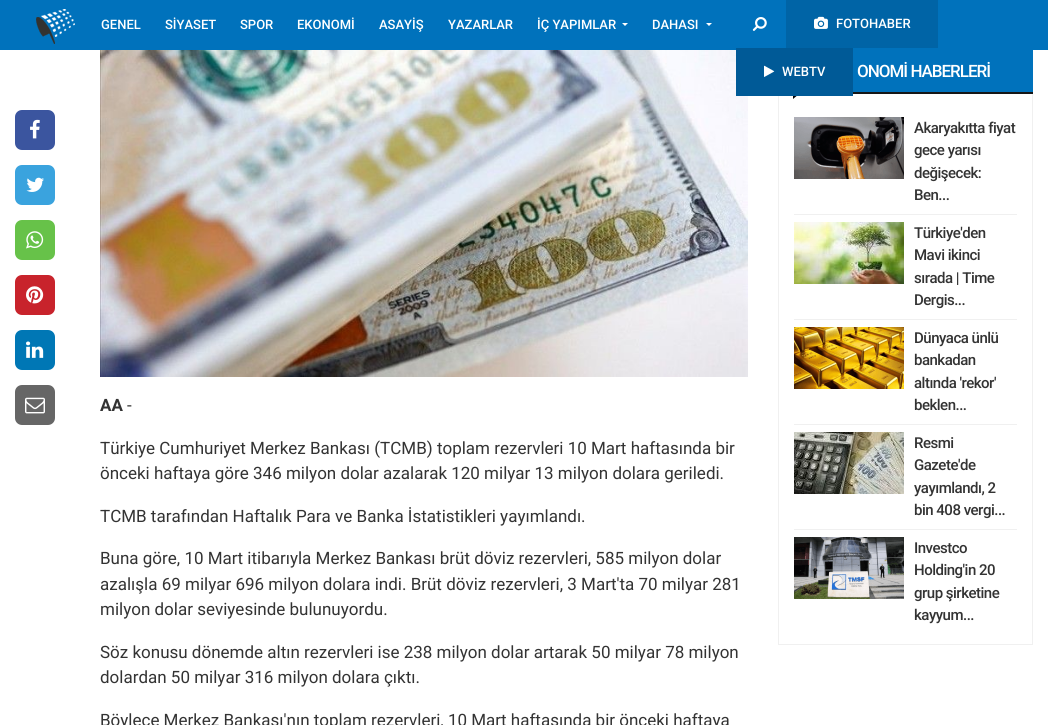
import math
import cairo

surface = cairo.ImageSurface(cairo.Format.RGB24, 1048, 725)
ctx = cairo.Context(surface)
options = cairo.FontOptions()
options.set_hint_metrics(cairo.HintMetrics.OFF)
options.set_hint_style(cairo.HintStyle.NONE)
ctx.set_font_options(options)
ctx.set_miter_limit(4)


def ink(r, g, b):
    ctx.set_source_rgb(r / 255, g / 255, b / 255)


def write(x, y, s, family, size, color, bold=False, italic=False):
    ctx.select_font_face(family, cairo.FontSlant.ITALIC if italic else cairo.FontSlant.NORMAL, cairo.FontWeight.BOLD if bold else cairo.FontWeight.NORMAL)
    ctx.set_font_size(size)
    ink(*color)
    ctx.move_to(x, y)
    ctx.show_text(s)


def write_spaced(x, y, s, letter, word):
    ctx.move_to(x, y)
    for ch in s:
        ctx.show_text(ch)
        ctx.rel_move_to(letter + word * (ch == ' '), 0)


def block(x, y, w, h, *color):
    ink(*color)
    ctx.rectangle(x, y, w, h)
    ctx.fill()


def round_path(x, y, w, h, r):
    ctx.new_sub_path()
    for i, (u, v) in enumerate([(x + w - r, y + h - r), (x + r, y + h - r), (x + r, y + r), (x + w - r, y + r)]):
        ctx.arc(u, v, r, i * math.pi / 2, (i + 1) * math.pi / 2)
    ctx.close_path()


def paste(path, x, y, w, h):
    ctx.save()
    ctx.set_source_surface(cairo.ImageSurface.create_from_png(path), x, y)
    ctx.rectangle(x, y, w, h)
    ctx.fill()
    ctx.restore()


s1 = dict(family="Roboto Medium", size=13, color=(255, 255, 255))
s2 = dict(family="Roboto", size=17, color=(51, 51, 51), bold=True)
s3 = dict(family="Roboto", size=17, color=(51, 51, 51))

ink(255, 255, 255)
ctx.paint()
block(0, 0, 1048, 50, 0, 114, 188)
paste("pic1.png", 36, 9, 39, 35)
write(101, 29, "GENEL", **s1)
write(165, 29, "SİYASET", **s1)
write(240, 29, "SPOR", **s1)
write(297, 29, "EKONOMİ", **s1)
write(379, 29, "ASAYİŞ", **s1)
write(448, 29, "YAZARLAR", **s1)
write(537, 29, "İÇ YAPIMLAR", **s1)
ctx.new_path()
ctx.move_to(622, 23)
ctx.line_to(628, 23)
ctx.line_to(625, 26)
ctx.close_path()
ctx.fill()
write(652, 29, "DAHASI", **s1)
ctx.new_path()
ctx.move_to(706, 23)
ctx.line_to(712, 23)
ctx.line_to(709, 26)
ctx.close_path()
ctx.fill()
paste("pic2.png", 752, 17, 15, 14)
block(786, 0, 152, 48, 0, 100, 166)
paste("pic3.png", 814, 16, 14, 13)
write(836, 28, "FOTOHABER", **s1)
paste("pic11.png", 100, 50, 648, 327)
ink(0, 0, 0)
ctx.new_path()
ctx.move_to(793, 94)
ctx.line_to(799, 94)
ctx.line_to(793, 99)
ctx.close_path()
ctx.fill()
block(1032, 94, 1, 551, 240, 240, 240)
block(778, 644, 255, 1, 240, 240, 240)
block(778, 94, 1, 551, 240, 240, 240)
block(736, 48, 117, 48, 0, 90, 151)
paste("pic4.png", 764, 65, 11, 12)
write(782, 76, "WEBTV", **s1)
ink(59, 85, 159)
round_path(15, 110, 40, 40, 7)
ctx.fill()
paste("pic5.png", 30, 119, 10, 20)
ink(58, 163, 222)
round_path(15, 165, 40, 40, 7)
ctx.fill()
paste("pic6.png", 26, 177, 18, 15)
ink(103, 194, 73)
round_path(15, 220, 40, 40, 7)
ctx.fill()
paste("pic7.png", 26, 231, 18, 18)
ink(200, 35, 44)
round_path(15, 275, 40, 40, 7)
ctx.fill()
paste("pic8.png", 26, 286, 18, 18)
ink(0, 119, 181)
round_path(15, 330, 40, 40, 7)
ctx.fill()
paste("pic9.png", 26, 341, 18, 17)
ink(102, 102, 102)
round_path(15, 385, 40, 40, 7)
ctx.fill()
paste("pic10.png", 25, 397, 20, 17)
write(100, 411, "AA", **s2)
write(127, 411, "-", **s3)
write(100, 454, "Türkiye Cumhuriyet Merkez Bankası (TCMB) toplam rezervleri 10 Mart haftasında bir", **s3)
write(100, 479, "önceki haftaya göre 346 milyon dolar azalarak 120 milyar 13 milyon dolara geriledi.", **s3)
write(100, 522, "TCMB tarafından Haftalık Para ve Banka İstatistikleri yayımlandı.", **s3)
write(100, 564, "Buna göre, 10 Mart itibarıyla Merkez Bankası brüt döviz rezervleri, 585 milyon dolar", **s3)
write(100, 590, "azalışla 69 milyar 696 milyon dolara indi. Brüt döviz rezervleri, 3 Mart'ta 70 milyar 281", **s3)
write(100, 615, "milyon dolar seviyesinde bulunuyordu.", **s3)
write(100, 658, "Söz konusu dönemde altın rezervleri ise 238 milyon dolar artarak 50 milyar 78 milyon", **s3)
write(100, 683, "dolardan 50 milyar 316 milyon dolara çıktı.", **s3)
write(100, 726, "Böylece Merkez Bankası'nın toplam rezervleri, 10 Mart haftasında bir önceki haftaya", **s3)
block(853, 50, 180, 42, 0, 114, 188)
block(853, 92, 180, 2, 22, 22, 22)
ctx.select_font_face("Roboto Medium")
ink(255, 255, 255)
write_spaced(857, 77, "ONOMİ HABERLERİ", -1, 0)
block(794, 214, 223, 1, 240, 240, 240)
paste("pic12.png", 794, 117, 110, 62)
ctx.set_font_size(15)
ink(51, 51, 51)
write_spaced(914, 133, "Akaryakıtta fiyat", -0.5, 0)
write_spaced(914, 155, "gece yarısı", -0.5, 0)
write_spaced(914, 178, "değişecek:", -0.5, 0)
write_spaced(914, 200, "Ben...", -0.5, 0)
block(794, 319, 223, 1, 240, 240, 240)
paste("pic13.png", 794, 222, 110, 62)
ink(51, 51, 51)
write_spaced(914, 238, "Türkiye'den", -0.5, 0)
write_spaced(914, 260, "Mavi ikinci", -0.5, 0)
write_spaced(914, 283, "sırada | Time", -0.5, 0)
write_spaced(914, 305, "Dergis...", -0.5, 0)
block(794, 424, 223, 1, 240, 240, 240)
paste("pic14.png", 794, 327, 110, 62)
ink(51, 51, 51)
write_spaced(914, 343, "Dünyaca ünlü", -0.5, 0)
write_spaced(914, 365, "bankadan", -0.5, 0)
write_spaced(914, 388, "altında 'rekor'", -0.5, 0)
write_spaced(914, 410, "beklen...", -0.5, 0)
block(794, 529, 223, 1, 240, 240, 240)
paste("pic15.png", 794, 432, 110, 62)
ink(51, 51, 51)
write_spaced(914, 448, "Resmi", -0.5, 0)
write_spaced(914, 470, "Gazete'de", -0.5, 0)
write_spaced(914, 493, "yayımlandı, 2", -0.5, 0)
write_spaced(914, 515, "bin 408 vergi...", -0.5, 0)
paste("pic16.png", 794, 537, 110, 62)
write_spaced(914, 553, "Investco", -0.5, 0)
write_spaced(914, 575, "Holding'in 20", -0.5, 0)
write_spaced(914, 598, "grup şirketine", -0.5, 0)
write_spaced(914, 620, "kayyum...", -0.5, 0)
surface.write_to_png("screenshot.png")
